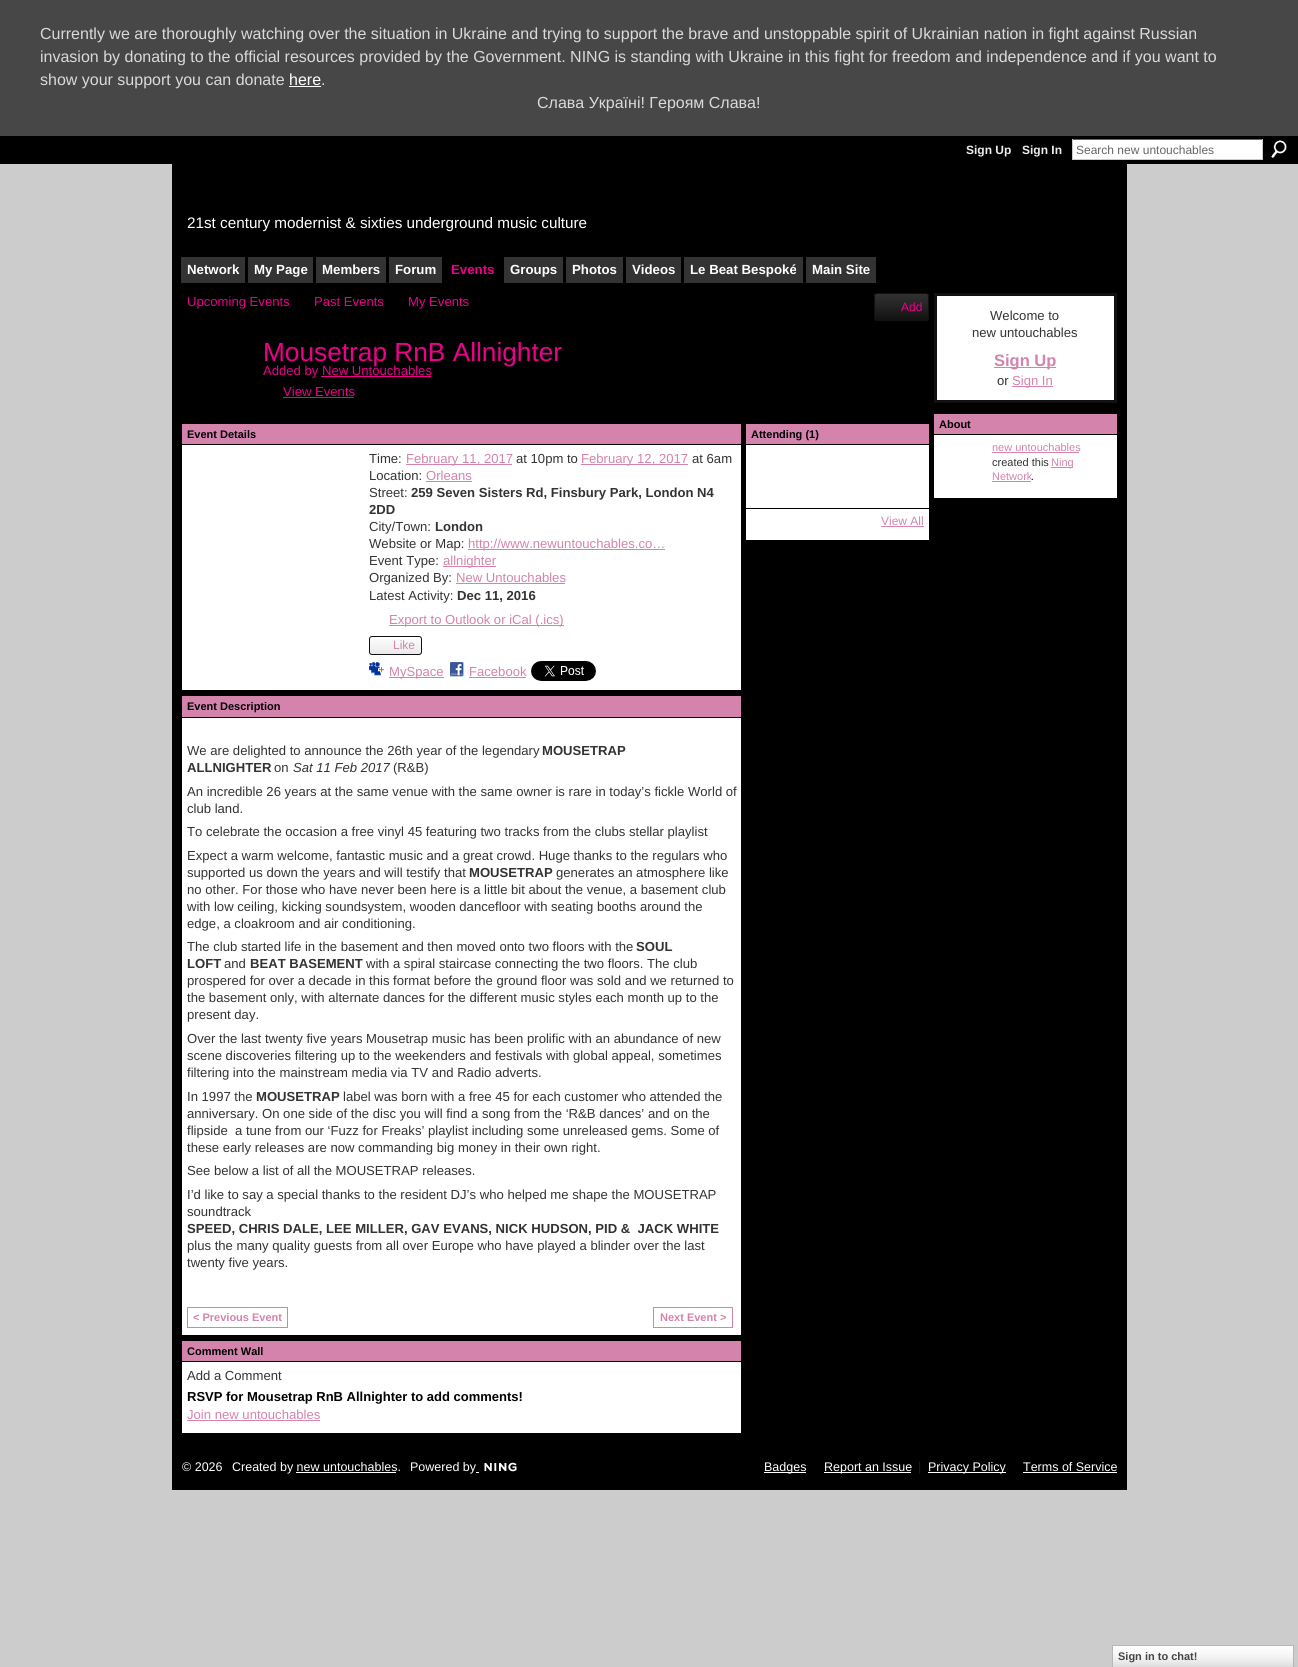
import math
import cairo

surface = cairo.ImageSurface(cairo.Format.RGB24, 1298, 1667)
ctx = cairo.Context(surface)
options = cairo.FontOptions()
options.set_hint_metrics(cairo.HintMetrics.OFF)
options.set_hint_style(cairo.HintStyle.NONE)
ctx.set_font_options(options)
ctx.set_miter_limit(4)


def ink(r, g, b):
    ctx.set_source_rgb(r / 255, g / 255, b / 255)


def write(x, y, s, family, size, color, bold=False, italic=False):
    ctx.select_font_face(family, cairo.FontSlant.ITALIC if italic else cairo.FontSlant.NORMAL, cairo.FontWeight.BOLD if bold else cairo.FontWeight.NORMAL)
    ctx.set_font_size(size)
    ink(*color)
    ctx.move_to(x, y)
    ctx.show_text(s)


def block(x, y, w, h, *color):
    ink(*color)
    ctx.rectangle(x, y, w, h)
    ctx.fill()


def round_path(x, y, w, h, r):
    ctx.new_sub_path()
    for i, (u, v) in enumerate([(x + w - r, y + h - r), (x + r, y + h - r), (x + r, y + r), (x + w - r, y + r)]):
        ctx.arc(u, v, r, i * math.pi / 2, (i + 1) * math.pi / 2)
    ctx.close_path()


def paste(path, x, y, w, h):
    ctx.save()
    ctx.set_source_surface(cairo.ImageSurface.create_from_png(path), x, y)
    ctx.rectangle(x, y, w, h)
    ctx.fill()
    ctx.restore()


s1 = dict(family="Liberation Sans", size=16, color=(218, 218, 218))
s2 = dict(family="Liberation Sans", size=16, color=(255, 255, 255))
s3 = dict(family="Liberation Sans", size=12, color=(238, 238, 238), bold=True)
s4 = dict(family="Liberation Sans", size=12, color=(102, 102, 102))
s5 = dict(family="Liberation Sans", size=15.25, color=(255, 255, 255))
s6 = dict(family="Liberation Sans", size=13.25, color=(255, 255, 255), bold=True)
s7 = dict(family="Liberation Sans", size=13.25, color=(236, 0, 140), bold=True)
s8 = dict(family="Liberation Sans", size=13.1, color=(236, 0, 140))
s9 = dict(family="Liberation Sans", size=12, color=(236, 0, 140))
s10 = dict(family="Liberation Sans", size=26.25, color=(236, 0, 140))
s11 = dict(family="Liberation Sans", size=11, color=(0, 0, 0), bold=True)
s12 = dict(family="Liberation Sans", size=13.1, color=(51, 51, 51))
s13 = dict(family="Liberation Sans", size=13.1, color=(212, 131, 173))
s14 = dict(family="Liberation Sans", size=13.1, color=(51, 51, 51), bold=True)
s15 = dict(family="Liberation Sans", size=12, color=(212, 131, 173))
s16 = dict(family="Liberation Sans", size=13.1, color=(51, 51, 51), italic=True)
s17 = dict(family="Liberation Sans", size=11, color=(212, 131, 173), bold=True)
s18 = dict(family="Liberation Sans", size=13, color=(0, 0, 0), bold=True)
s19 = dict(family="Liberation Sans", size=16.5, color=(212, 131, 173), bold=True)
s20 = dict(family="Liberation Sans", size=11, color=(212, 131, 173))
s21 = dict(family="Liberation Sans", size=11, color=(51, 51, 51))
s22 = dict(family="Liberation Sans", size=12.5, color=(255, 255, 255))
s23 = dict(family="Liberation Sans", size=12.5, color=(26, 26, 26))
s24 = dict(family="Liberation Sans", size=11, color=(69, 69, 69), bold=True)

ink(204, 204, 204)
ctx.paint()
block(0, 0, 1298, 136, 71, 71, 71)
write(40, 39, "Currently we are thoroughly watching over the situation in Ukraine and trying to support the brave and unstoppable spirit of Ukrainian nation in fight against Russian", **s1)
write(40, 62, "invasion by donating to the official resources provided by the Government. NING is standing with Ukraine in this fight for freedom and independence and if you want to", **s1)
write(40, 85, "show your support you can donate", **s1)
write(289, 85, "here", **s2)
block(289, 86, 32, 1, 255, 255, 255)
write(321, 85, ".", **s1)
write(537, 108, "Слава Україні! Героям Слава!", **s1)
block(0, 136, 1298, 28, 0, 0, 0)
write(966, 154, "Sign Up", **s3)
write(1022, 154, "Sign In", **s3)
block(1073, 140, 189, 19, 255, 255, 255)
block(1072, 139, 191, 1, 102, 102, 102)
block(1262, 139, 1, 21, 204, 204, 204)
block(1072, 159, 191, 1, 204, 204, 204)
block(1072, 139, 1, 21, 204, 204, 204)
write(1076, 154, "Search new untouchables", **s4)
paste("pic1.png", 1271, 140, 16, 18)
block(172, 164, 955, 1326, 0, 0, 0)
write(187, 228, "21st century modernist & sixties underground music culture", **s5)
block(181, 257, 64, 26, 51, 51, 51)
write(187, 274, "Network", **s6)
block(248, 257, 65, 26, 51, 51, 51)
write(254, 274, "My Page", **s6)
block(316, 257, 70, 26, 51, 51, 51)
write(322, 274, "Members", **s6)
block(389, 257, 53, 26, 51, 51, 51)
write(395, 274, "Forum", **s6)
write(451, 274, "Events", **s7)
block(504, 257, 59, 26, 51, 51, 51)
write(510, 274, "Groups", **s6)
block(566, 257, 57, 26, 51, 51, 51)
write(572, 274, "Photos", **s6)
block(626, 257, 55, 26, 51, 51, 51)
write(632, 274, "Videos", **s6)
block(684, 257, 119, 26, 51, 51, 51)
write(690, 274, "Le Beat Bespoké", **s6)
block(806, 257, 70, 26, 51, 51, 51)
write(812, 274, "Main Site", **s6)
write(187, 306, "Upcoming Events", **s8)
write(314, 306, "Past Events", **s8)
write(408, 306, "My Events", **s8)
paste("pic2.png", 874, 294, 55, 27)
round_path(874.5, 293.5, 54, 27, 2.5)
ink(17, 17, 17)
ctx.set_line_width(1)
ctx.stroke()
write(901, 311, "Add", **s9)
write(263, 361, "Mousetrap RnB Allnighter", **s10)
write(263, 375, "Added by New Untouchables", **s8)
block(321, 376, 110, 1, 236, 0, 140)
write(283, 396, "View Events", **s8)
block(283, 397, 71, 1, 236, 0, 140)
block(182, 424, 559, 20, 212, 131, 173)
write(187, 438, "Event Details", **s11)
block(182, 445, 559, 245, 255, 255, 255)
write(369, 463, "Time:", **s12)
block(406, 464, 106, 1, 212, 131, 173)
write(406, 463, "February 11, 2017", **s13)
write(516, 463, "at 10pm to", **s12)
block(581, 464, 107, 1, 212, 131, 173)
write(581, 463, "February 12, 2017", **s13)
write(692, 463, "at 6am", **s12)
write(369, 480, "Location:", **s12)
write(426, 480, "Orleans", **s13)
block(426, 481, 46, 1, 212, 131, 173)
write(369, 497, "Street:", **s12)
write(411, 497, "259 Seven Sisters Rd, Finsbury Park, London N4", **s14)
write(369, 514, "2DD", **s14)
write(369, 531, "City/Town:", **s12)
write(435, 531, "London", **s14)
write(369, 548, "Website or Map:", **s12)
block(468, 549, 197, 1, 212, 131, 173)
write(468, 548, "http://www.newuntouchables.co…", **s13)
write(369, 565, "Event Type:", **s12)
block(443, 566, 53, 1, 212, 131, 173)
write(443, 565, "allnighter", **s13)
write(369, 582, "Organized By:", **s12)
write(456, 582, "New Untouchables", **s13)
block(456, 583, 109, 1, 212, 131, 173)
write(369, 600, "Latest Activity:", **s12)
write(457, 600, "Dec 11, 2016", **s14)
block(389, 625, 175, 1, 212, 131, 173)
write(389, 624, "Export to Outlook or iCal (.ics)", **s13)
paste("pic3.png", 369, 639, 53, 16)
round_path(369.5, 636.5, 52, 18, 2.5)
ink(17, 17, 17)
ctx.stroke()
write(393, 649, "Like", **s15)
paste("pic4.png", 369, 662, 15, 14)
block(389, 677, 55, 1, 212, 131, 173)
write(389, 676, "MySpace", **s13)
paste("pic5.png", 450, 662, 14, 15)
write(469, 676, "Facebook", **s13)
block(469, 677, 57, 1, 212, 131, 173)
paste("pic6.png", 531, 661, 65, 20)
block(182, 696, 559, 21, 212, 131, 173)
write(187, 710, "Event Description", **s11)
block(182, 718, 559, 617, 255, 255, 255)
write(187, 755, "We are delighted to announce the 26th year of the legendary", **s12)
write(542, 755, "MOUSETRAP", **s14)
write(187, 772, "ALLNIGHTER", **s14)
write(274, 772, "on", **s12)
write(293, 772, "Sat 11 Feb 2017", **s16)
write(393, 772, "(R&B)", **s12)
write(187, 796, "An incredible 26 years at the same venue with the same owner is rare in today’s fickle World of", **s12)
write(187, 813, "club land.", **s12)
write(187, 836, "To celebrate the occasion a free vinyl 45 featuring two tracks from the clubs stellar playlist", **s12)
write(187, 860, "Expect a warm welcome, fantastic music and a great crowd. Huge thanks to the regulars who", **s12)
write(187, 877, "supported us down the years and will testify that", **s12)
write(469, 877, "MOUSETRAP", **s14)
write(556, 877, "generates an atmosphere like", **s12)
write(187, 894, "no other. For those who have never been here is a little bit about the venue, a basement club", **s12)
write(187, 911, "with low ceiling, kicking soundsystem, wooden dancefloor with seating booths around the", **s12)
write(187, 928, "edge, a cloakroom and air conditioning.", **s12)
write(187, 951, "The club started life in the basement and then moved onto two floors with the", **s12)
write(636, 951, "SOUL", **s14)
write(187, 968, "LOFT", **s14)
write(224, 968, "and", **s12)
write(250, 968, "BEAT BASEMENT", **s14)
write(366, 968, "with a spiral staircase connecting the two floors. The club", **s12)
write(187, 985, "prospered for over a decade in this format before the ground floor was sold and we returned to", **s12)
write(187, 1002, "the basement only, with alternate dances for the different music styles each month up to the", **s12)
write(187, 1019, "present day.", **s12)
write(187, 1043, "Over the last twenty five years Mousetrap music has been prolific with an abundance of new", **s12)
write(187, 1060, "scene discoveries filtering up to the weekenders and festivals with global appeal, sometimes", **s12)
write(187, 1077, "filtering into the mainstream media via TV and Radio adverts.", **s12)
write(187, 1101, "In 1997 the", **s12)
write(256, 1101, "MOUSETRAP", **s14)
write(343, 1101, "label was born with a free 45 for each customer who attended the", **s12)
write(187, 1118, "anniversary. On one side of the disc you will find a song from the ‘R&B dances’ and on the", **s12)
write(187, 1135, "flipside  a tune from our ‘Fuzz for Freaks’ playlist including some unreleased gems. Some of", **s12)
write(187, 1152, "these early releases are now commanding big money in their own right.", **s12)
write(187, 1175, "See below a list of all the MOUSETRAP releases.", **s12)
write(187, 1199, "I’d like to say a special thanks to the resident DJ’s who helped me shape the MOUSETRAP", **s12)
write(187, 1216, "soundtrack", **s12)
write(187, 1233, "SPEED, CHRIS DALE, LEE MILLER, GAV EVANS, NICK HUDSON, PID &  JACK WHITE", **s14)
write(187, 1250, "plus the many quality guests from all over Europe who have played a blinder over the last", **s12)
write(187, 1267, "twenty five years.", **s12)
ctx.rectangle(187.5, 1307.5, 100, 20)
ink(212, 131, 173)
ctx.stroke()
write(193, 1321, "< Previous Event", **s17)
ctx.rectangle(653.5, 1307.5, 79, 20)
ctx.stroke()
write(660, 1321, "Next Event >", **s17)
block(182, 1341, 559, 20, 212, 131, 173)
write(187, 1355, "Comment Wall", **s11)
block(182, 1362, 559, 71, 255, 255, 255)
write(187, 1380, "Add a Comment", **s12)
write(187, 1401, "RSVP for Mousetrap RnB Allnighter to add comments!", **s18)
write(187, 1419, "Join new untouchables", **s13)
block(187, 1420, 133, 1, 212, 131, 173)
block(746, 424, 183, 20, 212, 131, 173)
write(751, 438, "Attending (1)", **s11)
block(746, 445, 183, 63, 255, 255, 255)
block(746, 509, 183, 31, 255, 255, 255)
write(881, 525, "View All", **s15)
block(881, 526, 43, 1, 212, 131, 173)
ink(255, 255, 255)
ctx.rectangle(935.5, 294.5, 180, 107)
ctx.fill_preserve()
ink(17, 17, 17)
ctx.set_line_width(3)
ctx.stroke()
write(990, 320, "Welcome to", **s12)
write(972, 337, "new untouchables", **s12)
block(994, 367, 62, 1, 212, 131, 173)
write(994, 366, "Sign Up", **s19)
write(997, 385, "or", **s12)
block(1012, 386, 41, 1, 212, 131, 173)
write(1012, 385, "Sign In", **s13)
block(934, 414, 183, 20, 212, 131, 173)
write(939, 428, "About", **s11)
block(934, 435, 183, 63, 255, 255, 255)
write(992, 451, "new untouchables", **s20)
block(992, 452, 87, 1, 212, 131, 173)
write(992, 466, "created this", **s21)
block(1051, 467, 22, 1, 212, 131, 173)
write(1051, 466, "Ning", **s20)
write(992, 480, "Network", **s20)
block(992, 481, 39, 1, 212, 131, 173)
write(1031, 480, ".", **s21)
ctx.save()
ctx.rectangle(182, 1459, 388, 16)
ctx.clip()
write(182, 1471, "© 2026", **s22)
ctx.restore()
write(232, 1471, "Created by new untouchables.", **s22)
write(410, 1471, "Powered by", **s22)
paste("pic7.png", 484, 1462, 33, 10)
block(296, 1472, 100, 1, 255, 255, 255)
block(476, 1472, 3, 1, 255, 255, 255)
block(764, 1472, 42, 1, 255, 255, 255)
write(764, 1471, "Badges", **s22)
block(824, 1472, 87, 1, 255, 255, 255)
write(824, 1471, "Report an Issue", **s22)
write(918, 1471, "|", **s23)
block(928, 1472, 78, 1, 255, 255, 255)
write(928, 1471, "Privacy Policy", **s22)
write(1023, 1471, "Terms of Service", **s22)
block(1023, 1472, 94, 1, 255, 255, 255)
paste("pic8.png", 1113, 1646, 180, 21)
ctx.rectangle(1112.5, 1645.5, 181, 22)
ink(183, 183, 183)
ctx.set_line_width(1)
ctx.stroke()
write(1118, 1660, "Sign in to chat!", **s24)
surface.write_to_png("screenshot.png")
